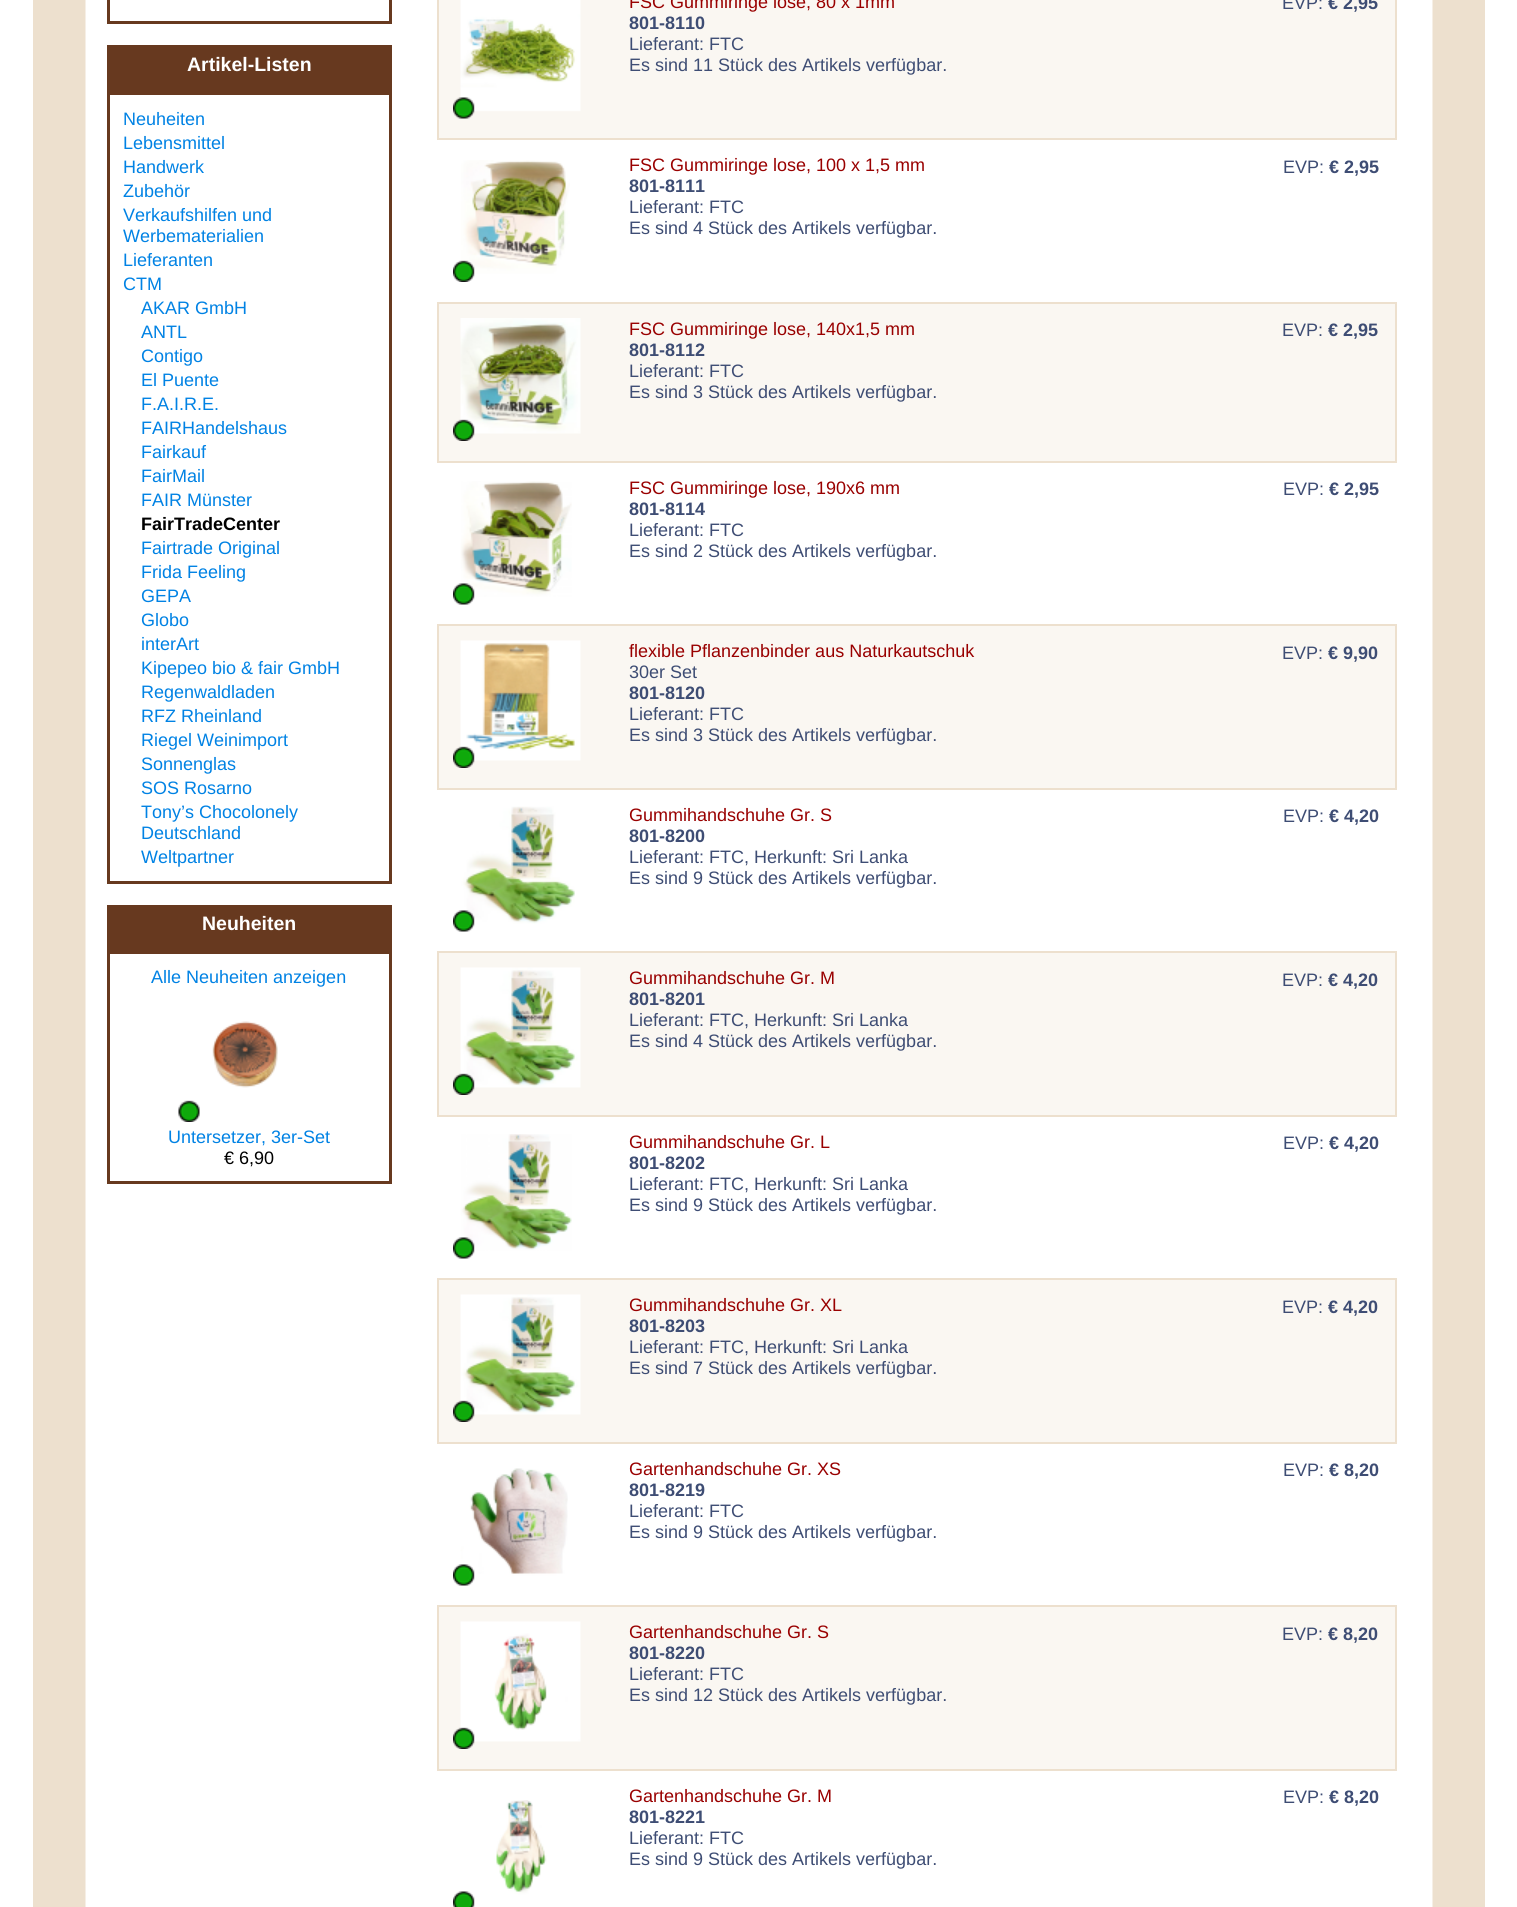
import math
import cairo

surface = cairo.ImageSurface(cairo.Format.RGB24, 1517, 1907)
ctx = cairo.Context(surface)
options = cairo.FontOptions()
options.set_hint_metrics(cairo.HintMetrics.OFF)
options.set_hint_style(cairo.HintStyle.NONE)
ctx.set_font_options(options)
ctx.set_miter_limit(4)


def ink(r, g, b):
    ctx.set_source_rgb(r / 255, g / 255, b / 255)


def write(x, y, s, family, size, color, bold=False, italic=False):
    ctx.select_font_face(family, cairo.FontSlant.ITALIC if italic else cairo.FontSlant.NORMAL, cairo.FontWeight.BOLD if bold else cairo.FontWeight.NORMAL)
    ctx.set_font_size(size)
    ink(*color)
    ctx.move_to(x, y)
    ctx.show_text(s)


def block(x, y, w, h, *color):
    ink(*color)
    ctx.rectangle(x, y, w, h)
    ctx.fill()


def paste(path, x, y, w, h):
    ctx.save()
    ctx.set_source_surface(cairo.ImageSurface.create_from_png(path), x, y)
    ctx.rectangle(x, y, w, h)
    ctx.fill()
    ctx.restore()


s1 = dict(family="Liberation Sans", size=19.5, color=(255, 255, 255), bold=True)
s2 = dict(family="Liberation Sans", size=18, color=(0, 130, 228))
s3 = dict(family="Liberation Sans", size=18, color=(0, 0, 0), bold=True)
s4 = dict(family="Liberation Sans", size=18, color=(0, 0, 0))
s5 = dict(family="Liberation Sans", size=18, color=(153, 0, 0))
s6 = dict(family="Liberation Sans", size=18, color=(62, 77, 116), bold=True)
s7 = dict(family="Liberation Sans", size=18, color=(62, 77, 116))

ink(255, 255, 255)
ctx.paint()
paste("pic1.png", 33, 0, 1452, 1907)
ctx.rectangle(108.5, -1.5, 282, 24)
ink(103, 57, 31)
ctx.set_line_width(3)
ctx.stroke()
block(107, 45, 285, 47, 103, 57, 31)
write(187, 71, "Artikel-Listen", **s1)
ctx.rectangle(108.5, 93.5, 282, 789)
ink(103, 57, 31)
ctx.stroke()
write(123, 125, "Neuheiten", **s2)
write(123, 149, "Lebensmittel", **s2)
write(123, 173, "Handwerk", **s2)
write(123, 197, "Zubehör", **s2)
write(123, 221, "Verkaufshilfen und", **s2)
write(123, 242, "Werbematerialien", **s2)
write(123, 266, "Lieferanten", **s2)
write(123, 290, "CTM", **s2)
write(141, 314, "AKAR GmbH", **s2)
write(141, 338, "ANTL", **s2)
write(141, 362, "Contigo", **s2)
write(141, 386, "El Puente", **s2)
write(141, 410, "F.A.I.R.E.", **s2)
write(141, 434, "FAIRHandelshaus", **s2)
write(141, 458, "Fairkauf", **s2)
write(141, 482, "FairMail", **s2)
write(141, 506, "FAIR Münster", **s2)
write(141, 530, "FairTradeCenter", **s3)
write(141, 554, "Fairtrade Original", **s2)
write(141, 578, "Frida Feeling", **s2)
write(141, 602, "GEPA", **s2)
write(141, 626, "Globo", **s2)
write(141, 650, "interArt", **s2)
write(141, 674, "Kipepeo bio & fair GmbH", **s2)
write(141, 698, "Regenwaldladen", **s2)
write(141, 722, "RFZ Rheinland", **s2)
write(141, 746, "Riegel Weinimport", **s2)
write(141, 770, "Sonnenglas", **s2)
write(141, 794, "SOS Rosarno", **s2)
write(141, 818, "Tony’s Chocolonely", **s2)
write(141, 839, "Deutschland", **s2)
write(141, 863, "Weltpartner", **s2)
block(107, 905, 285, 46, 103, 57, 31)
write(202, 930, "Neuheiten", **s1)
ctx.rectangle(108.5, 952.5, 282, 230)
ink(103, 57, 31)
ctx.stroke()
write(151, 983, "Alle Neuheiten anzeigen", **s2)
paste("pic2.png", 178, 1021, 100, 101)
write(168, 1143, "Untersetzer, 3er-Set", **s2)
write(224, 1164, "€ 6,90", **s4)
block(439, 0, 956, 138, 250, 247, 242)
block(1395, 0, 2, 140, 237, 224, 206)
block(437, 138, 960, 2, 237, 224, 206)
block(437, 0, 2, 140, 237, 224, 206)
paste("pic3.png", 453, 0, 128, 119)
write(629, 8, "FSC Gummiringe lose, 80 x 1mm", **s5)
write(629, 29, "801-8110", **s6)
write(629, 50, "Lieferant: FTC", **s7)
write(629, 71, "Es sind 11 Stück des Artikels verfügbar.", **s7)
write(1282, 9, "EVP:", **s7)
write(1328, 9, "€ 2,95", **s6)
paste("pic4.png", 453, 160, 117, 122)
write(629, 171, "FSC Gummiringe lose, 100 x 1,5 mm", **s5)
write(629, 192, "801-8111", **s6)
write(629, 213, "Lieferant: FTC", **s7)
write(629, 234, "Es sind 4 Stück des Artikels verfügbar.", **s7)
write(1283, 173, "EVP:", **s7)
write(1329, 173, "€ 2,95", **s6)
block(439, 304, 956, 157, 250, 247, 242)
block(437, 302, 960, 2, 237, 224, 206)
block(1395, 302, 2, 160, 237, 224, 206)
block(437, 461, 960, 2, 237, 224, 206)
block(437, 302, 2, 160, 237, 224, 206)
paste("pic5.png", 453, 318, 128, 123)
write(629, 335, "FSC Gummiringe lose, 140x1,5 mm", **s5)
write(629, 356, "801-8112", **s6)
write(629, 377, "Lieferant: FTC", **s7)
write(629, 398, "Es sind 3 Stück des Artikels verfügbar.", **s7)
write(1282, 336, "EVP:", **s7)
write(1328, 336, "€ 2,95", **s6)
paste("pic6.png", 453, 481, 119, 124)
write(629, 494, "FSC Gummiringe lose, 190x6 mm", **s5)
write(629, 515, "801-8114", **s6)
write(629, 536, "Lieferant: FTC", **s7)
write(629, 557, "Es sind 2 Stück des Artikels verfügbar.", **s7)
write(1283, 495, "EVP:", **s7)
write(1329, 495, "€ 2,95", **s6)
block(439, 626, 956, 162, 250, 247, 242)
block(437, 624, 960, 2, 237, 224, 206)
block(1395, 624, 2, 165, 237, 224, 206)
block(437, 788, 960, 2, 237, 224, 206)
block(437, 624, 2, 165, 237, 224, 206)
paste("pic7.png", 453, 640, 128, 128)
write(629, 657, "flexible Pflanzenbinder aus Naturkautschuk", **s5)
write(629, 678, "30er Set", **s7)
write(629, 699, "801-8120", **s6)
write(629, 720, "Lieferant: FTC", **s7)
write(629, 741, "Es sind 3 Stück des Artikels verfügbar.", **s7)
write(1282, 659, "EVP:", **s7)
write(1328, 659, "€ 9,90", **s6)
paste("pic8.png", 453, 806, 122, 126)
write(629, 821, "Gummihandschuhe Gr. S", **s5)
write(629, 842, "801-8200", **s6)
write(629, 863, "Lieferant: FTC, Herkunft: Sri Lanka", **s7)
write(629, 884, "Es sind 9 Stück des Artikels verfügbar.", **s7)
write(1283, 822, "EVP:", **s7)
write(1329, 822, "€ 4,20", **s6)
block(439, 953, 956, 162, 250, 247, 242)
block(437, 951, 960, 2, 237, 224, 206)
block(1395, 951, 2, 165, 237, 224, 206)
block(437, 1115, 960, 2, 237, 224, 206)
block(437, 951, 2, 165, 237, 224, 206)
paste("pic9.png", 453, 967, 128, 128)
write(629, 984, "Gummihandschuhe Gr. M", **s5)
write(629, 1005, "801-8201", **s6)
write(629, 1026, "Lieferant: FTC, Herkunft: Sri Lanka", **s7)
write(629, 1047, "Es sind 4 Stück des Artikels verfügbar.", **s7)
write(1282, 986, "EVP:", **s7)
write(1328, 986, "€ 4,20", **s6)
paste("pic10.png", 453, 1134, 119, 125)
write(629, 1148, "Gummihandschuhe Gr. L", **s5)
write(629, 1169, "801-8202", **s6)
write(629, 1190, "Lieferant: FTC, Herkunft: Sri Lanka", **s7)
write(629, 1211, "Es sind 9 Stück des Artikels verfügbar.", **s7)
write(1283, 1149, "EVP:", **s7)
write(1329, 1149, "€ 4,20", **s6)
block(439, 1280, 956, 162, 250, 247, 242)
block(437, 1278, 960, 2, 237, 224, 206)
block(1395, 1278, 2, 165, 237, 224, 206)
block(437, 1442, 960, 2, 237, 224, 206)
block(437, 1278, 2, 165, 237, 224, 206)
paste("pic11.png", 453, 1294, 128, 128)
write(629, 1311, "Gummihandschuhe Gr. XL", **s5)
write(629, 1332, "801-8203", **s6)
write(629, 1353, "Lieferant: FTC, Herkunft: Sri Lanka", **s7)
write(629, 1374, "Es sind 7 Stück des Artikels verfügbar.", **s7)
write(1282, 1313, "EVP:", **s7)
write(1328, 1313, "€ 4,20", **s6)
paste("pic12.png", 453, 1468, 115, 118)
write(629, 1475, "Gartenhandschuhe Gr. XS", **s5)
write(629, 1496, "801-8219", **s6)
write(629, 1517, "Lieferant: FTC", **s7)
write(629, 1538, "Es sind 9 Stück des Artikels verfügbar.", **s7)
write(1283, 1476, "EVP:", **s7)
write(1329, 1476, "€ 8,20", **s6)
block(439, 1607, 956, 162, 250, 247, 242)
block(437, 1605, 960, 2, 237, 224, 206)
block(1395, 1605, 2, 165, 237, 224, 206)
block(437, 1769, 960, 2, 237, 224, 206)
block(437, 1605, 2, 165, 237, 224, 206)
paste("pic13.png", 453, 1621, 128, 128)
write(629, 1638, "Gartenhandschuhe Gr. S", **s5)
write(629, 1659, "801-8220", **s6)
write(629, 1680, "Lieferant: FTC", **s7)
write(629, 1701, "Es sind 12 Stück des Artikels verfügbar.", **s7)
write(1282, 1640, "EVP:", **s7)
write(1328, 1640, "€ 8,20", **s6)
write(629, 1802, "Gartenhandschuhe Gr. M", **s5)
write(629, 1823, "801-8221", **s6)
write(629, 1844, "Lieferant: FTC", **s7)
write(629, 1865, "Es sind 9 Stück des Artikels verfügbar.", **s7)
write(1283, 1803, "EVP:", **s7)
write(1329, 1803, "€ 8,20", **s6)
paste("pic14.png", 453, 1800, 94, 107)
surface.write_to_png("screenshot.png")
